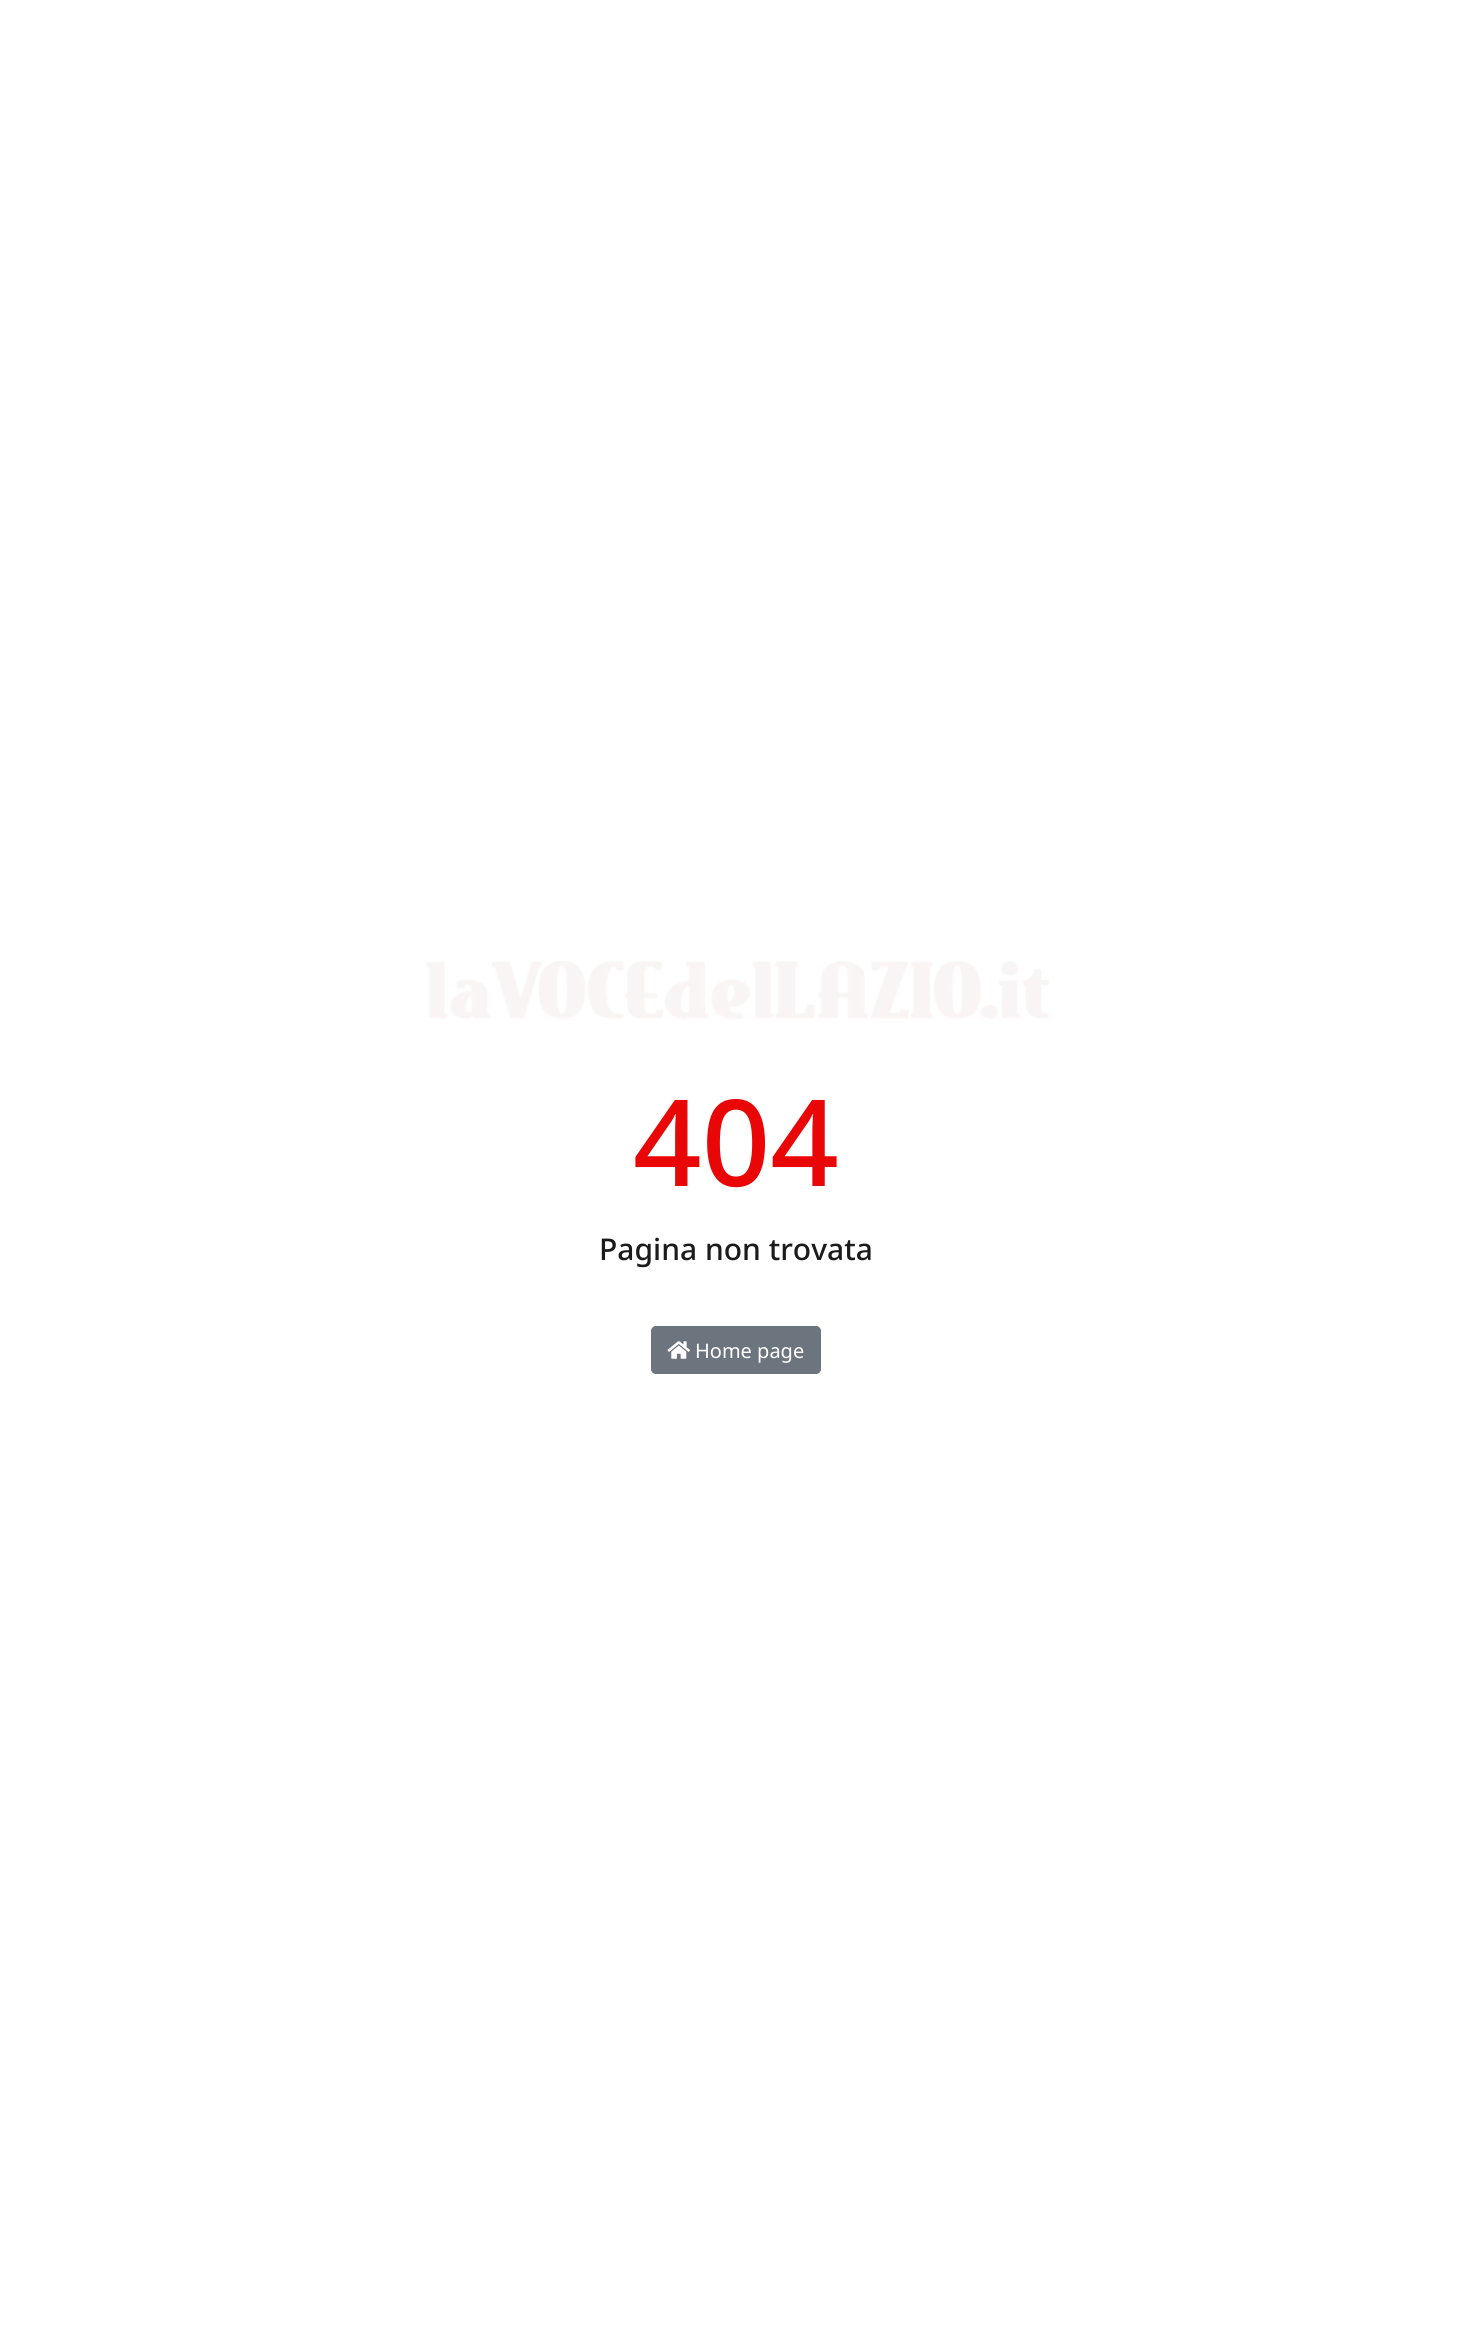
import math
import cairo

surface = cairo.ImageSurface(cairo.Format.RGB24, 1472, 2326)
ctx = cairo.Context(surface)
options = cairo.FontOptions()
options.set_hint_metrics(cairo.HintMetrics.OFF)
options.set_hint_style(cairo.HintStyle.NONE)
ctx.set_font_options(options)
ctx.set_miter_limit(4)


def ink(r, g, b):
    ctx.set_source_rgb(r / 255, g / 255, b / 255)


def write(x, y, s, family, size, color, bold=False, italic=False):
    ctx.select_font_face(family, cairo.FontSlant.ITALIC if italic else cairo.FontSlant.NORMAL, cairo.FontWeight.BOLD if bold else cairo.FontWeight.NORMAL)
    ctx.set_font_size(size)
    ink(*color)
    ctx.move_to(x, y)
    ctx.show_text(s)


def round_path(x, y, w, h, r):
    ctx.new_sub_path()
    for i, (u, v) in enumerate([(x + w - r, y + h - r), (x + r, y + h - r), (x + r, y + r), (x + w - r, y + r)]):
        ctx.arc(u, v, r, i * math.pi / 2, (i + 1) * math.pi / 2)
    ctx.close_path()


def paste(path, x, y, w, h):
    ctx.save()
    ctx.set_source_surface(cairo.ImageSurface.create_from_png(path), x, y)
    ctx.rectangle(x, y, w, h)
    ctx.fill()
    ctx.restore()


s1 = dict(family="Noto Sans Medium", size=120, color=(233, 6, 6))
s2 = dict(family="Noto Sans Medium", size=30, color=(27, 27, 27))
s3 = dict(family="Noto Sans", size=20, color=(255, 255, 255))

ink(255, 255, 255)
ctx.paint()
paste("pic1.png", 426, 961, 623, 58)
write(633, 1186, "404", **s1)
write(599, 1260, "Pagina non trovata", **s2)
ink(108, 117, 125)
round_path(651.5, 1326.5, 169, 47, 4.5)
ctx.fill_preserve()
ctx.set_line_width(1)
ctx.stroke()
paste("pic2.png", 667, 1341, 23, 18)
write(695, 1358, "Home page", **s3)
surface.write_to_png("screenshot.png")
